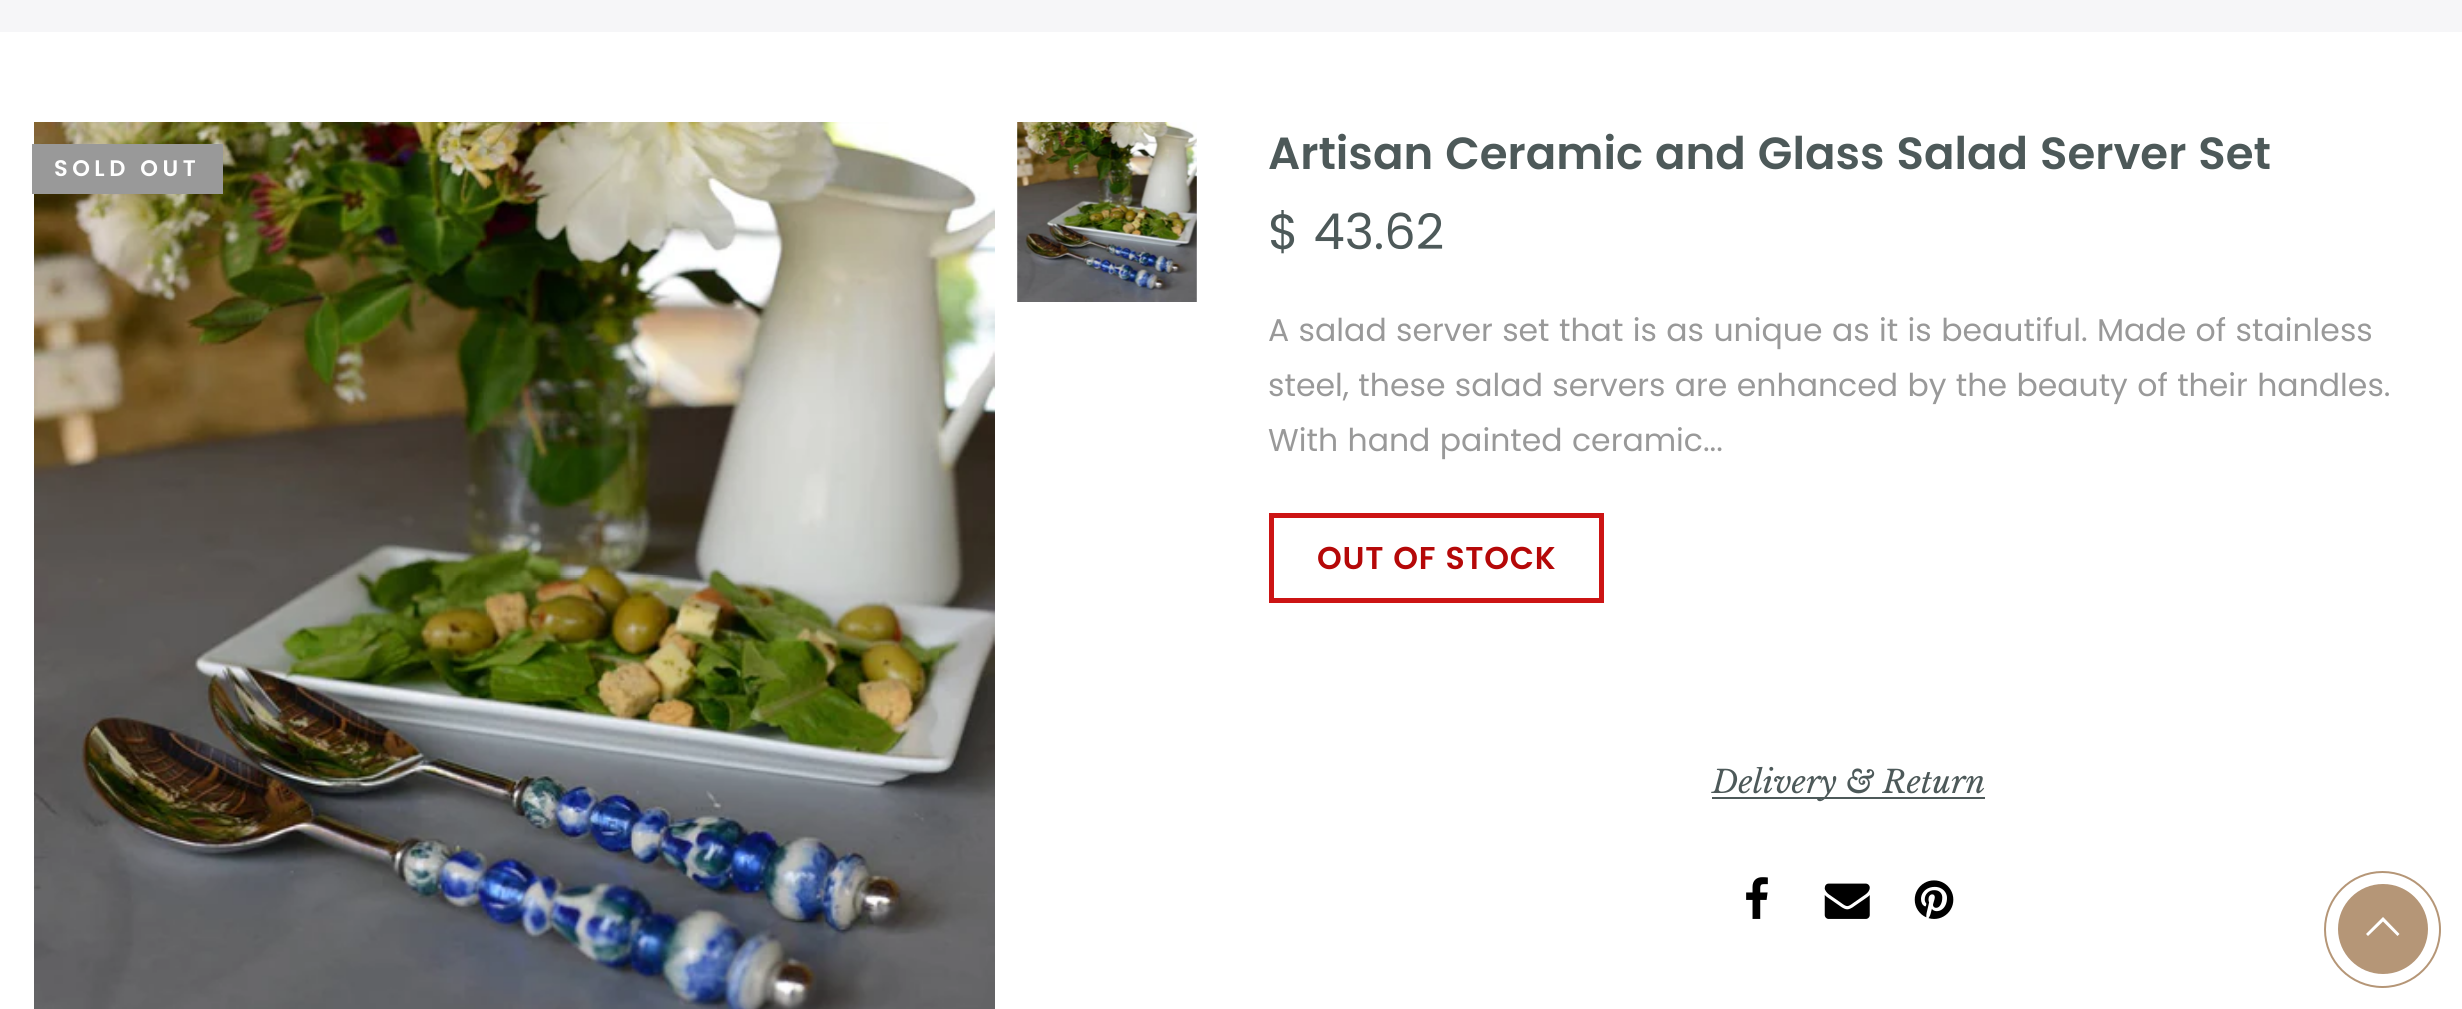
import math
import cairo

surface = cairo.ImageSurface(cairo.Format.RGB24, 2462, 1009)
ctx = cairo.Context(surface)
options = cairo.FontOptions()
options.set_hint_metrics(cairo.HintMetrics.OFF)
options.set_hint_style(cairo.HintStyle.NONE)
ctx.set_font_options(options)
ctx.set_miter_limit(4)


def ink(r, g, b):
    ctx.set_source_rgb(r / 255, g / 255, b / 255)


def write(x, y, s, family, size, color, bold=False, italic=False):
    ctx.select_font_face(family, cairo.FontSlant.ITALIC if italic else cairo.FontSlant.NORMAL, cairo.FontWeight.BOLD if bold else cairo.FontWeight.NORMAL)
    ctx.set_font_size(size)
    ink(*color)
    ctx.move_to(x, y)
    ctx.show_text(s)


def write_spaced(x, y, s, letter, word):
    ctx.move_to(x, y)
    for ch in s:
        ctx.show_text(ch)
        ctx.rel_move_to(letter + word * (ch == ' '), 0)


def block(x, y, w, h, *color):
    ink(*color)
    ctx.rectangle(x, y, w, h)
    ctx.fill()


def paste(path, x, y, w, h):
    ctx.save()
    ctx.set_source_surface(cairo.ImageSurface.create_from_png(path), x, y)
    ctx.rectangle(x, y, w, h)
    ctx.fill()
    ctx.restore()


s1 = dict(family="Poppins SemiBold", size=45, color=(77, 89, 89))
s2 = dict(family="Poppins", size=49.5, color=(77, 89, 89))
s3 = dict(family="Poppins", size=31.5, color=(153, 153, 153))
s4 = dict(family="Libre Baskerville", size=31.5, color=(77, 89, 89), italic=True)

ink(255, 255, 255)
ctx.paint()
block(0, 0, 2462, 32, 246, 246, 248)
paste("pic1.png", 34, 122, 961, 887)
paste("pic2.png", 1017, 122, 180, 180)
block(32, 144, 191, 50, 153, 153, 153)
ctx.select_font_face("Poppins SemiBold")
ctx.set_font_size(22.5)
ink(255, 255, 255)
write_spaced(54, 176, "SOLD OUT", 4.5, 0)
write(1268, 169, "Artisan Ceramic and Glass Salad Server Set", **s1)
write(1268, 249, "$ 43.62", **s2)
write(1268, 341, "A salad server set that is as unique as it is beautiful. Made of stainless", **s3)
write(1268, 396, "steel, these salad servers are enhanced by the beauty of their handles.", **s3)
write(1268, 451, "With hand painted ceramic...", **s3)
ctx.rectangle(1271.5, 515.5, 330, 85)
ink(204, 20, 20)
ctx.set_line_width(5)
ctx.stroke()
ctx.select_font_face("Poppins SemiBold")
ink(181, 8, 8)
write_spaced(1317, 569, "OUT OF STOCK", 0.75, 0)
block(1712, 797, 273, 2, 77, 89, 89)
write(1712, 793, "Delivery & Return", **s4)
paste("pic3.png", 1746, 877, 22, 42)
paste("pic4.png", 1824, 883, 46, 36)
paste("pic5.png", 1914, 880, 40, 39)
ctx.arc(2382.5, 929.5, 57.5, 0, 2 * math.pi)
ink(181, 150, 119)
ctx.set_line_width(2)
ctx.stroke()
ctx.arc(2383, 929, 45, 0, 2 * math.pi)
ctx.fill()
ink(255, 255, 255)
ctx.new_path()
ctx.move_to(2385, 919)
ctx.line_to(2383, 917)
ctx.line_to(2366, 934)
ctx.line_to(2368, 936)
ctx.line_to(2383, 921.5)
ctx.line_to(2397.5, 936)
ctx.line_to(2399.5, 934)
ctx.close_path()
ctx.fill()
surface.write_to_png("screenshot.png")
